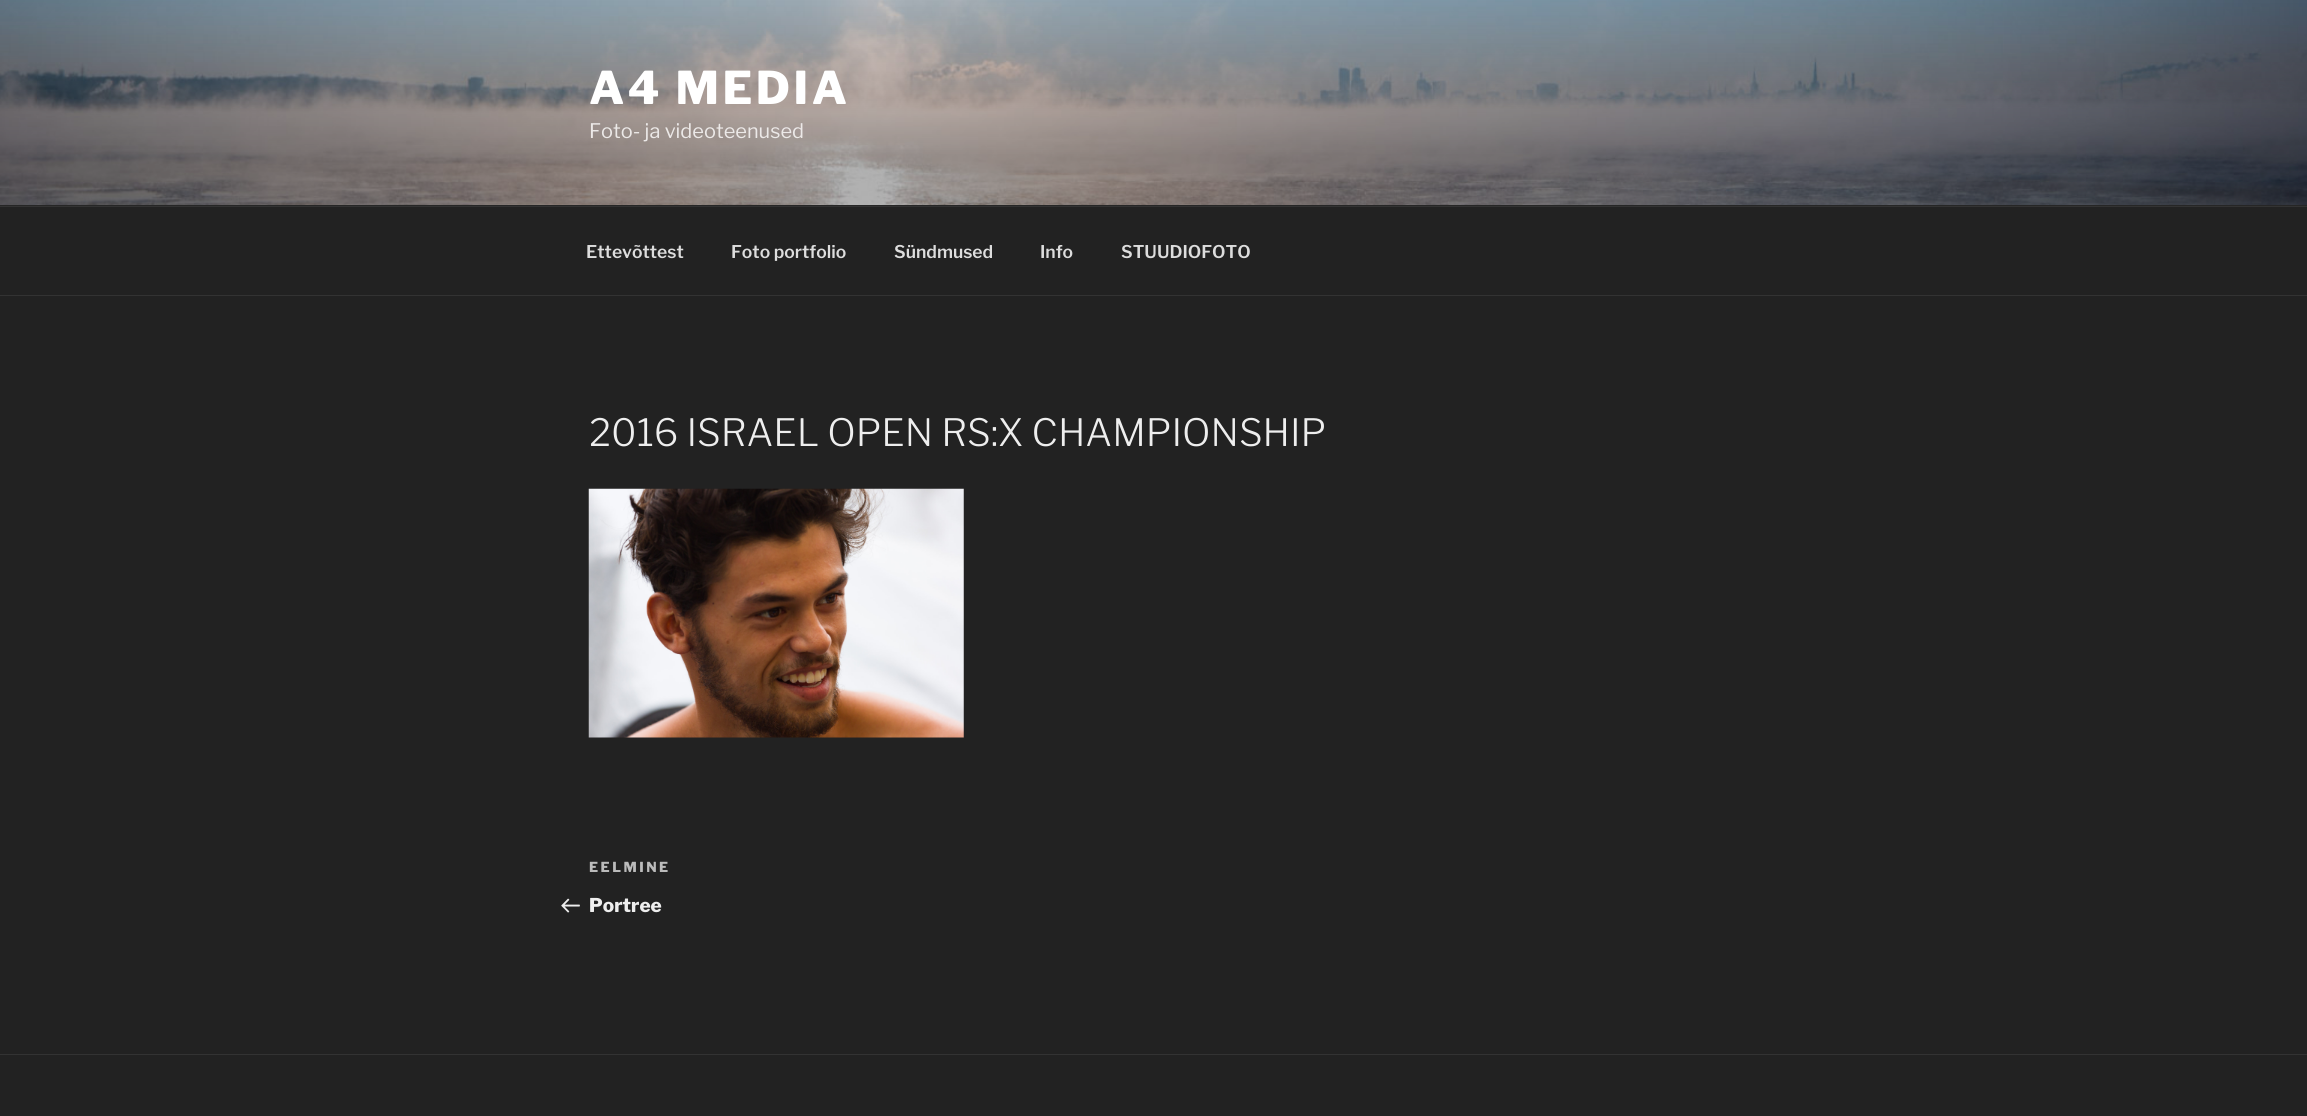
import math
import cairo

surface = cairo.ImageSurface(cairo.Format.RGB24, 2307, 1116)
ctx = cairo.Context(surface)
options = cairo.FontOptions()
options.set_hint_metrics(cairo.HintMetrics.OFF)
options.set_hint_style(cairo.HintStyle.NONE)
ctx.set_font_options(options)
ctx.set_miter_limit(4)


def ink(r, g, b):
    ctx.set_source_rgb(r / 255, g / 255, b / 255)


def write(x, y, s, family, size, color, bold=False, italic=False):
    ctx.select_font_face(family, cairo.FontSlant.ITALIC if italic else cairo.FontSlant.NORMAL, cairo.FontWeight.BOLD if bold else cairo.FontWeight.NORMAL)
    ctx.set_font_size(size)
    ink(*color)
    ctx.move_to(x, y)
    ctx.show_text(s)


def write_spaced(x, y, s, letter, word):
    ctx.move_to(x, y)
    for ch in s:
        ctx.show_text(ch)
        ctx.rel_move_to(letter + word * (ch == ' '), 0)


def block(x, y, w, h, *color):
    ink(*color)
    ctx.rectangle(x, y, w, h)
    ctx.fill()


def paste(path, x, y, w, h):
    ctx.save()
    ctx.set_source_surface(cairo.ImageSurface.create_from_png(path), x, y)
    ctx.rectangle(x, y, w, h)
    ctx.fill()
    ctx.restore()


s1 = dict(family="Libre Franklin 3 Thin", size=20, color=(236, 233, 232))
s2 = dict(family="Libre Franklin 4 Thin", size=17.5, color=(221, 221, 221))
s3 = dict(family="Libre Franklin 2 Thin", size=37.5, color=(238, 238, 238))
s4 = dict(family="Libre Franklin Thin", size=19, color=(238, 238, 238))

ink(34, 34, 34)
ctx.paint()
block(0, 205, 2307, 1, 38, 38, 38)
paste("pic1.png", 0, 0, 2307, 205)
ctx.select_font_face("Libre Franklin Thin")
ctx.set_font_size(45)
ink(255, 255, 255)
write_spaced(589, 104, "A4 MEDIA", 3.5, 0)
write(589, 138, "Foto- ja videoteenused", **s1)
block(0, 206, 2307, 1, 51, 51, 51)
block(0, 295, 2307, 1, 51, 51, 51)
write(586, 258, "Ettevõttest", **s2)
write(731, 258, "Foto portfolio", **s2)
write(894, 258, "Sündmused", **s2)
write(1040, 258, "Info", **s2)
write(1121, 258, "STUUDIOFOTO", **s2)
write(589, 446, "2016 ISRAEL OPEN RS:X CHAMPIONSHIP", **s3)
paste("pic2.png", 588, 488, 376, 250)
ctx.select_font_face("Libre Franklin Thin")
ctx.set_font_size(13.75)
ink(187, 187, 187)
write_spaced(589, 872, "EELMINE", 2.5, 0)
paste("pic3.png", 561, 898, 19, 15)
write(589, 912, "Portree", **s4)
block(0, 1054, 2307, 1, 51, 51, 51)
surface.write_to_png("screenshot.png")
